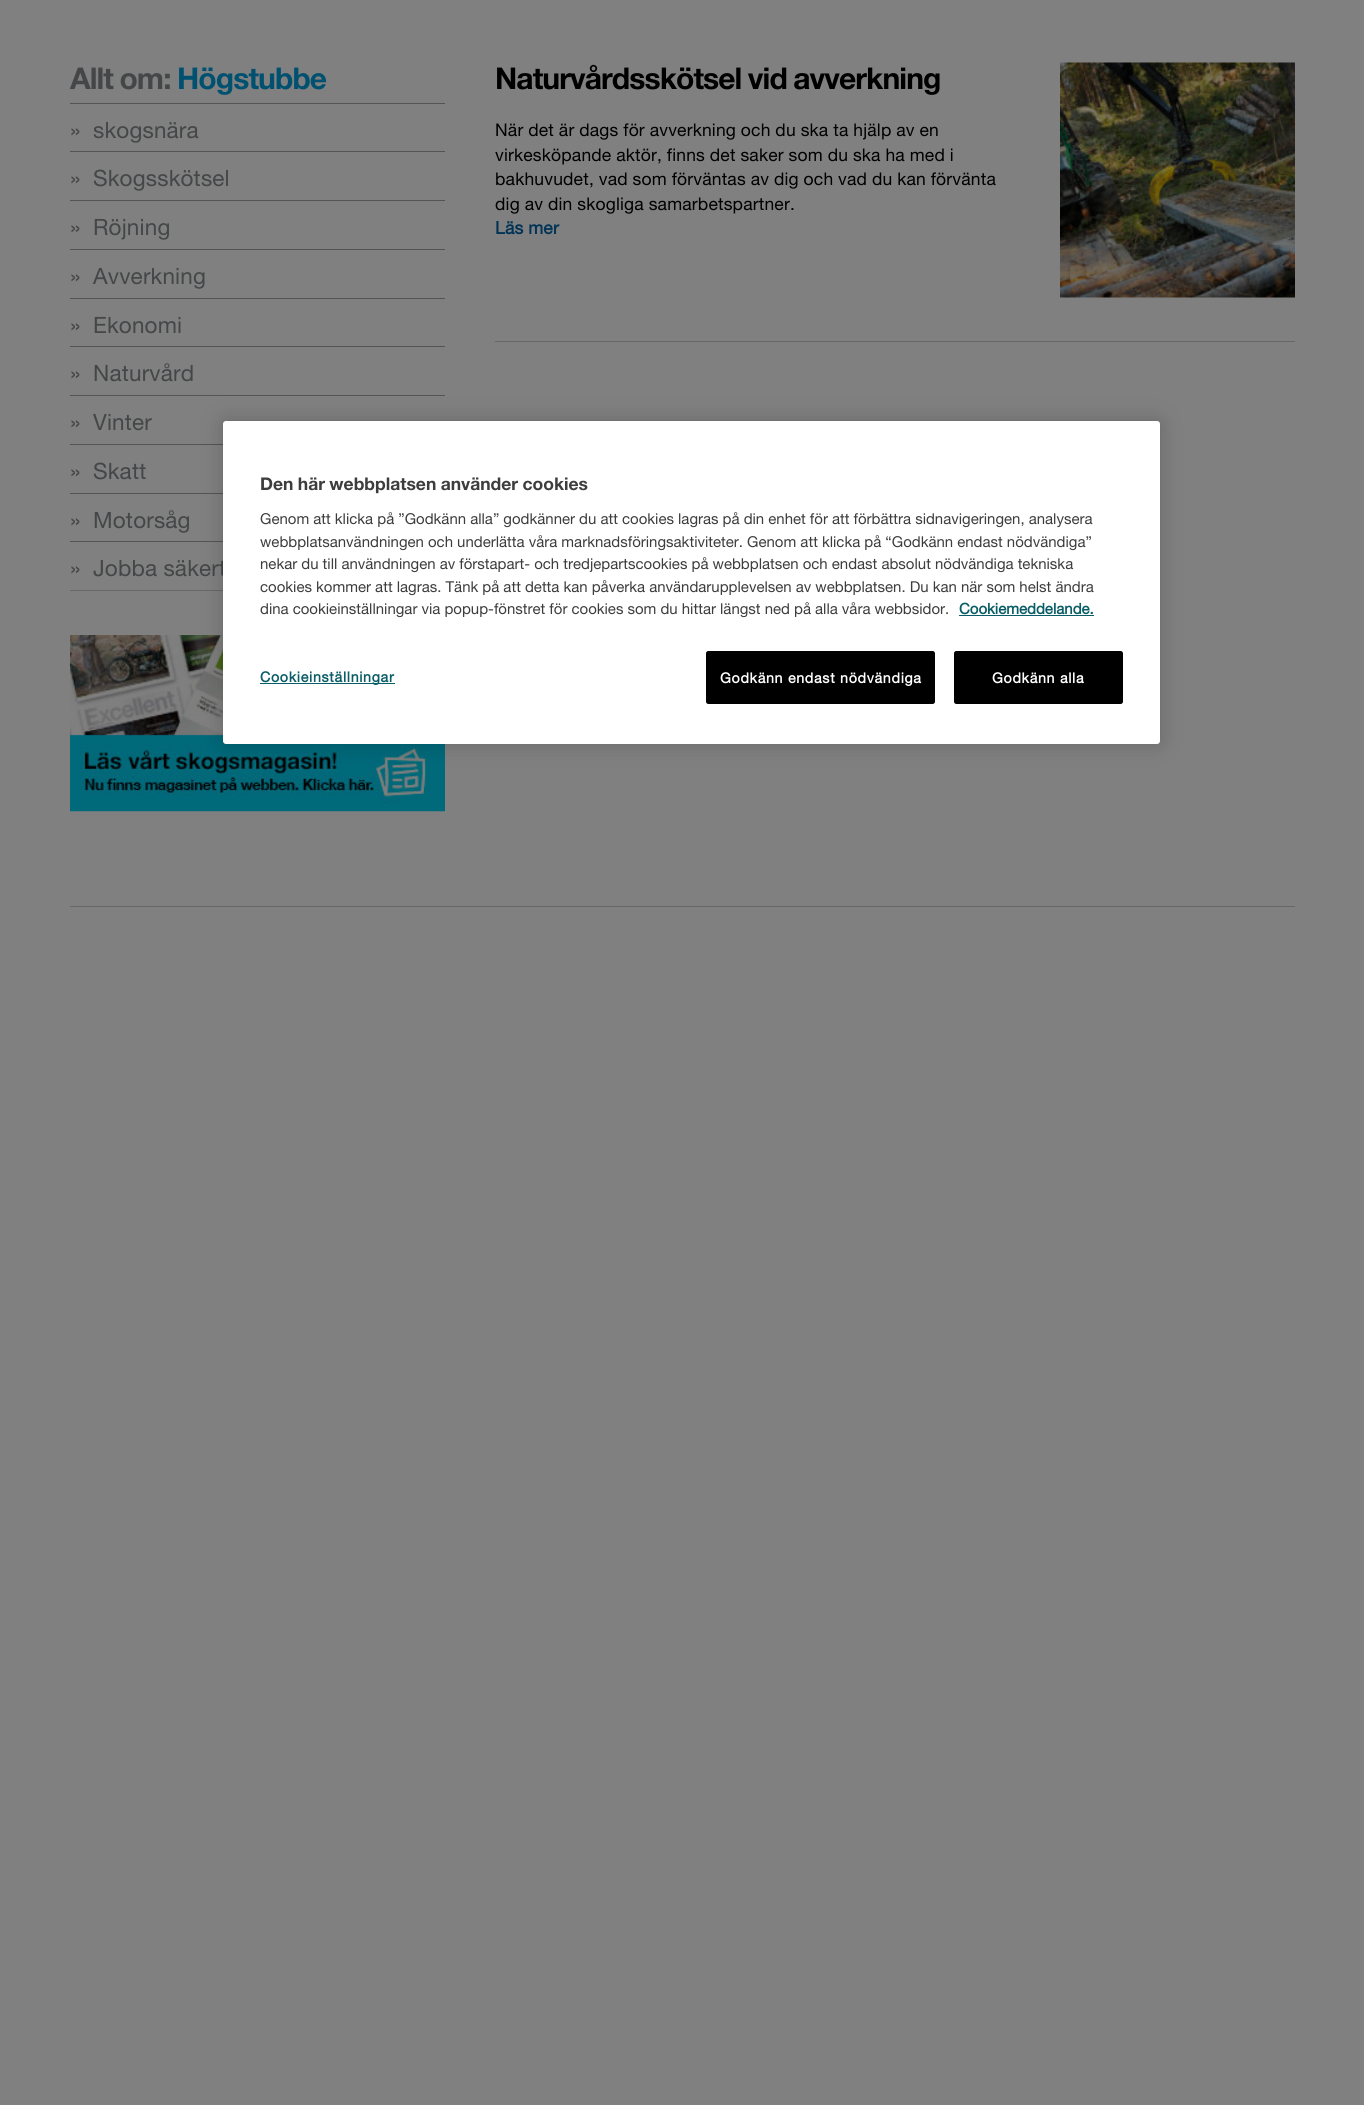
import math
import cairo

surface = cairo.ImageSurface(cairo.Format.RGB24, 1364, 2105)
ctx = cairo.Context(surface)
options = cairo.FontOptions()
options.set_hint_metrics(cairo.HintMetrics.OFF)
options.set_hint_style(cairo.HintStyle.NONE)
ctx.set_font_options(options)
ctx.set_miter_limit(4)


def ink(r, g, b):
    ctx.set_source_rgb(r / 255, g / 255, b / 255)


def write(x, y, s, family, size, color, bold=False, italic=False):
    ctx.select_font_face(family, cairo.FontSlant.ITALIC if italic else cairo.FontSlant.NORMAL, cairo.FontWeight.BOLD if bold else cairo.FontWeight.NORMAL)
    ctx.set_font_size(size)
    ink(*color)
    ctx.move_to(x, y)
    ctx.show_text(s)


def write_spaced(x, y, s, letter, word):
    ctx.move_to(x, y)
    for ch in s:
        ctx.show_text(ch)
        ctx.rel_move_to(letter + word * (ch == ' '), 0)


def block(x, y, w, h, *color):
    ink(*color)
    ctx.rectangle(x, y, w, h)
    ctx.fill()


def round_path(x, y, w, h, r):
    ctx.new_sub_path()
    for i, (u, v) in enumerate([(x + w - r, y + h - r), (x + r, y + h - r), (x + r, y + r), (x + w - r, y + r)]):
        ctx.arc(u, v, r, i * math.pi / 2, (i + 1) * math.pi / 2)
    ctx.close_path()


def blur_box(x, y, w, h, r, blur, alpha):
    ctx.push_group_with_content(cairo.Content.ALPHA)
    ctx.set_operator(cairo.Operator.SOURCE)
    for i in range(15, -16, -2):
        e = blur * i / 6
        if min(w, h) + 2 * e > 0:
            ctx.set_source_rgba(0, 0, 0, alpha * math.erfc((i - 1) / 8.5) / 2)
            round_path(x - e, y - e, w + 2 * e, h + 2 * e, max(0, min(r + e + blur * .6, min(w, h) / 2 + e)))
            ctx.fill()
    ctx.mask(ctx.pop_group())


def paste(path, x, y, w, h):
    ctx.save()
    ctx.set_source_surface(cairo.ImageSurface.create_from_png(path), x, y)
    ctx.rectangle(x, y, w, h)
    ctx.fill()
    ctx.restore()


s1 = dict(family="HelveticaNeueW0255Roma", size=15, color=(9, 93, 102), bold=True)

ink(128, 128, 128)
ctx.paint()
block(70, 590, 153, 1, 102, 103, 103)
ctx.select_font_face("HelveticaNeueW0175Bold", cairo.FontSlant.NORMAL, cairo.FontWeight.BOLD)
ctx.set_font_size(30)
ink(68, 70, 71)
write_spaced(70, 89, "Allt om:", -0.9, -1)
ink(0, 80, 112)
write_spaced(177, 89, "Högstubbe", -0.9, 0)
block(70, 103, 375, 1, 83, 84, 85)
ctx.select_font_face("HelveticaNeueW0255Roma")
ctx.set_font_size(22.5)
ink(68, 70, 71)
write_spaced(70, 138, "»", 0.18, 0)
write_spaced(93, 138, "skogsnära", 0.18, 0)
block(70, 151, 375, 1, 83, 84, 85)
ink(68, 70, 71)
write_spaced(70, 186, "»", 0.18, 0)
write_spaced(93, 186, "Skogsskötsel", 0.18, 0)
block(70, 200, 375, 1, 83, 84, 85)
ink(68, 70, 71)
write_spaced(70, 235, "»", 0.18, 0)
write_spaced(93, 235, "Röjning", 0.18, 0)
block(70, 249, 375, 1, 83, 84, 85)
ink(68, 70, 71)
write_spaced(70, 284, "»", 0.18, 0)
write_spaced(93, 284, "Avverkning", 0.18, 0)
block(70, 298, 375, 1, 83, 84, 85)
ink(68, 70, 71)
write_spaced(70, 333, "»", 0.18, 0)
write_spaced(93, 333, "Ekonomi", 0.18, 0)
block(70, 346, 375, 1, 83, 84, 85)
ink(68, 70, 71)
write_spaced(70, 381, "»", 0.18, 0)
write_spaced(93, 381, "Naturvård", 0.18, 0)
block(70, 395, 375, 1, 83, 84, 85)
ink(68, 70, 71)
write_spaced(70, 430, "»", 0.18, 0)
write_spaced(93, 430, "Vinter", 0.18, 0)
block(70, 444, 153, 1, 83, 84, 85)
ink(68, 70, 71)
write_spaced(70, 479, "»", 0.18, 0)
write_spaced(93, 479, "Skatt", 0.18, 0)
block(70, 493, 153, 1, 83, 84, 85)
ink(68, 70, 71)
write_spaced(70, 528, "»", 0.18, 0)
write_spaced(93, 528, "Motorsåg", 0.18, 0)
block(70, 541, 153, 1, 83, 84, 85)
ink(68, 70, 71)
write_spaced(70, 576, "»", 0.18, 0)
write_spaced(93, 576, "Jobba säkert", 0.18, -0.25)
paste("pic1.png", 70, 635, 375, 177)
ctx.select_font_face("HelveticaNeueW0175Bold", cairo.FontSlant.NORMAL, cairo.FontWeight.BOLD)
ctx.set_font_size(30)
ink(0, 0, 0)
write_spaced(495, 89, "Naturvårdsskötsel vid avverkning", -0.9, -1)
ctx.select_font_face("HelveticaNeueW0255Roma")
ctx.set_font_size(17.5)
write_spaced(495, 136, "När det är dags för avverkning och du ska ta hjälp av en", 0.18, -0.25)
write_spaced(495, 161, "virkesköpande aktör, finns det saker som du ska ha med i", 0.18, -0.25)
write_spaced(495, 185, "bakhuvudet, vad som förväntas av dig och vad du kan förvänta", 0.18, -0.25)
write_spaced(495, 210, "dig av din skogliga samarbetspartner.", 0.18, -0.25)
ctx.select_font_face("HelveticaNeueW0255Roma", cairo.FontSlant.NORMAL, cairo.FontWeight.BOLD)
ink(0, 51, 86)
write_spaced(495, 234, "Läs mer", 0.18, -0.25)
paste("pic2.png", 1060, 62, 235, 236)
block(495, 341, 800, 1, 102, 103, 103)
block(70, 906, 1225, 1, 102, 103, 103)
ink(0, 0, 0)
blur_box(223, 421, 937, 323, 3, 11, 0.2)
ink(255, 255, 255)
round_path(223, 421, 937, 323, 3)
ctx.fill()
ctx.select_font_face("HelveticaNeueW0175Bold", cairo.FontSlant.NORMAL, cairo.FontWeight.BOLD)
ink(61, 61, 61)
write_spaced(260, 490, "Den här webbplatsen använder cookies", 0, -0.5)
ctx.select_font_face("HelveticaNeueW0255Roma")
ctx.set_font_size(15)
write_spaced(260, 524, "Genom att klicka på ”Godkänn alla” godkänner du att cookies lagras på din enhet för att förbättra sidnavigeringen, analysera", 0, -0.1)
write_spaced(260, 547, "webbplatsanvändningen och underlätta våra marknadsföringsaktiviteter. Genom att klicka på “Godkänn endast nödvändiga”", 0, -0.1)
write_spaced(260, 569, "nekar du till användningen av förstapart- och tredjepartscookies på webbplatsen och endast absolut nödvändiga tekniska", 0, -0.1)
write_spaced(260, 592, "cookies kommer att lagras. Tänk på att detta kan påverka användarupplevelsen av webbplatsen. Du kan när som helst ändra", 0, -0.1)
write_spaced(260, 614, "dina cookieinställningar via popup-fönstret för cookies som du hittar längst ned på alla våra webbsidor.", 0, -0.1)
write(959, 614, "Cookiemeddelande.", **s1)
block(959, 615, 135, 1, 9, 93, 102)
block(260, 683, 135, 1, 9, 93, 102)
ctx.set_font_size(14.25)
write_spaced(260, 682, "Cookieinställningar", 0.7, 0)
ink(0, 0, 0)
round_path(706.5, 651.5, 228, 52, 2)
ctx.fill_preserve()
ctx.set_line_width(1)
ctx.stroke()
ink(255, 255, 255)
write_spaced(720, 683, "Godkänn endast nödvändiga", 0.7, 0)
ink(0, 0, 0)
round_path(954.5, 651.5, 168, 52, 2)
ctx.fill_preserve()
ctx.stroke()
ink(255, 255, 255)
write_spaced(992, 683, "Godkänn alla", 0.7, 0)
surface.write_to_png("screenshot.png")
